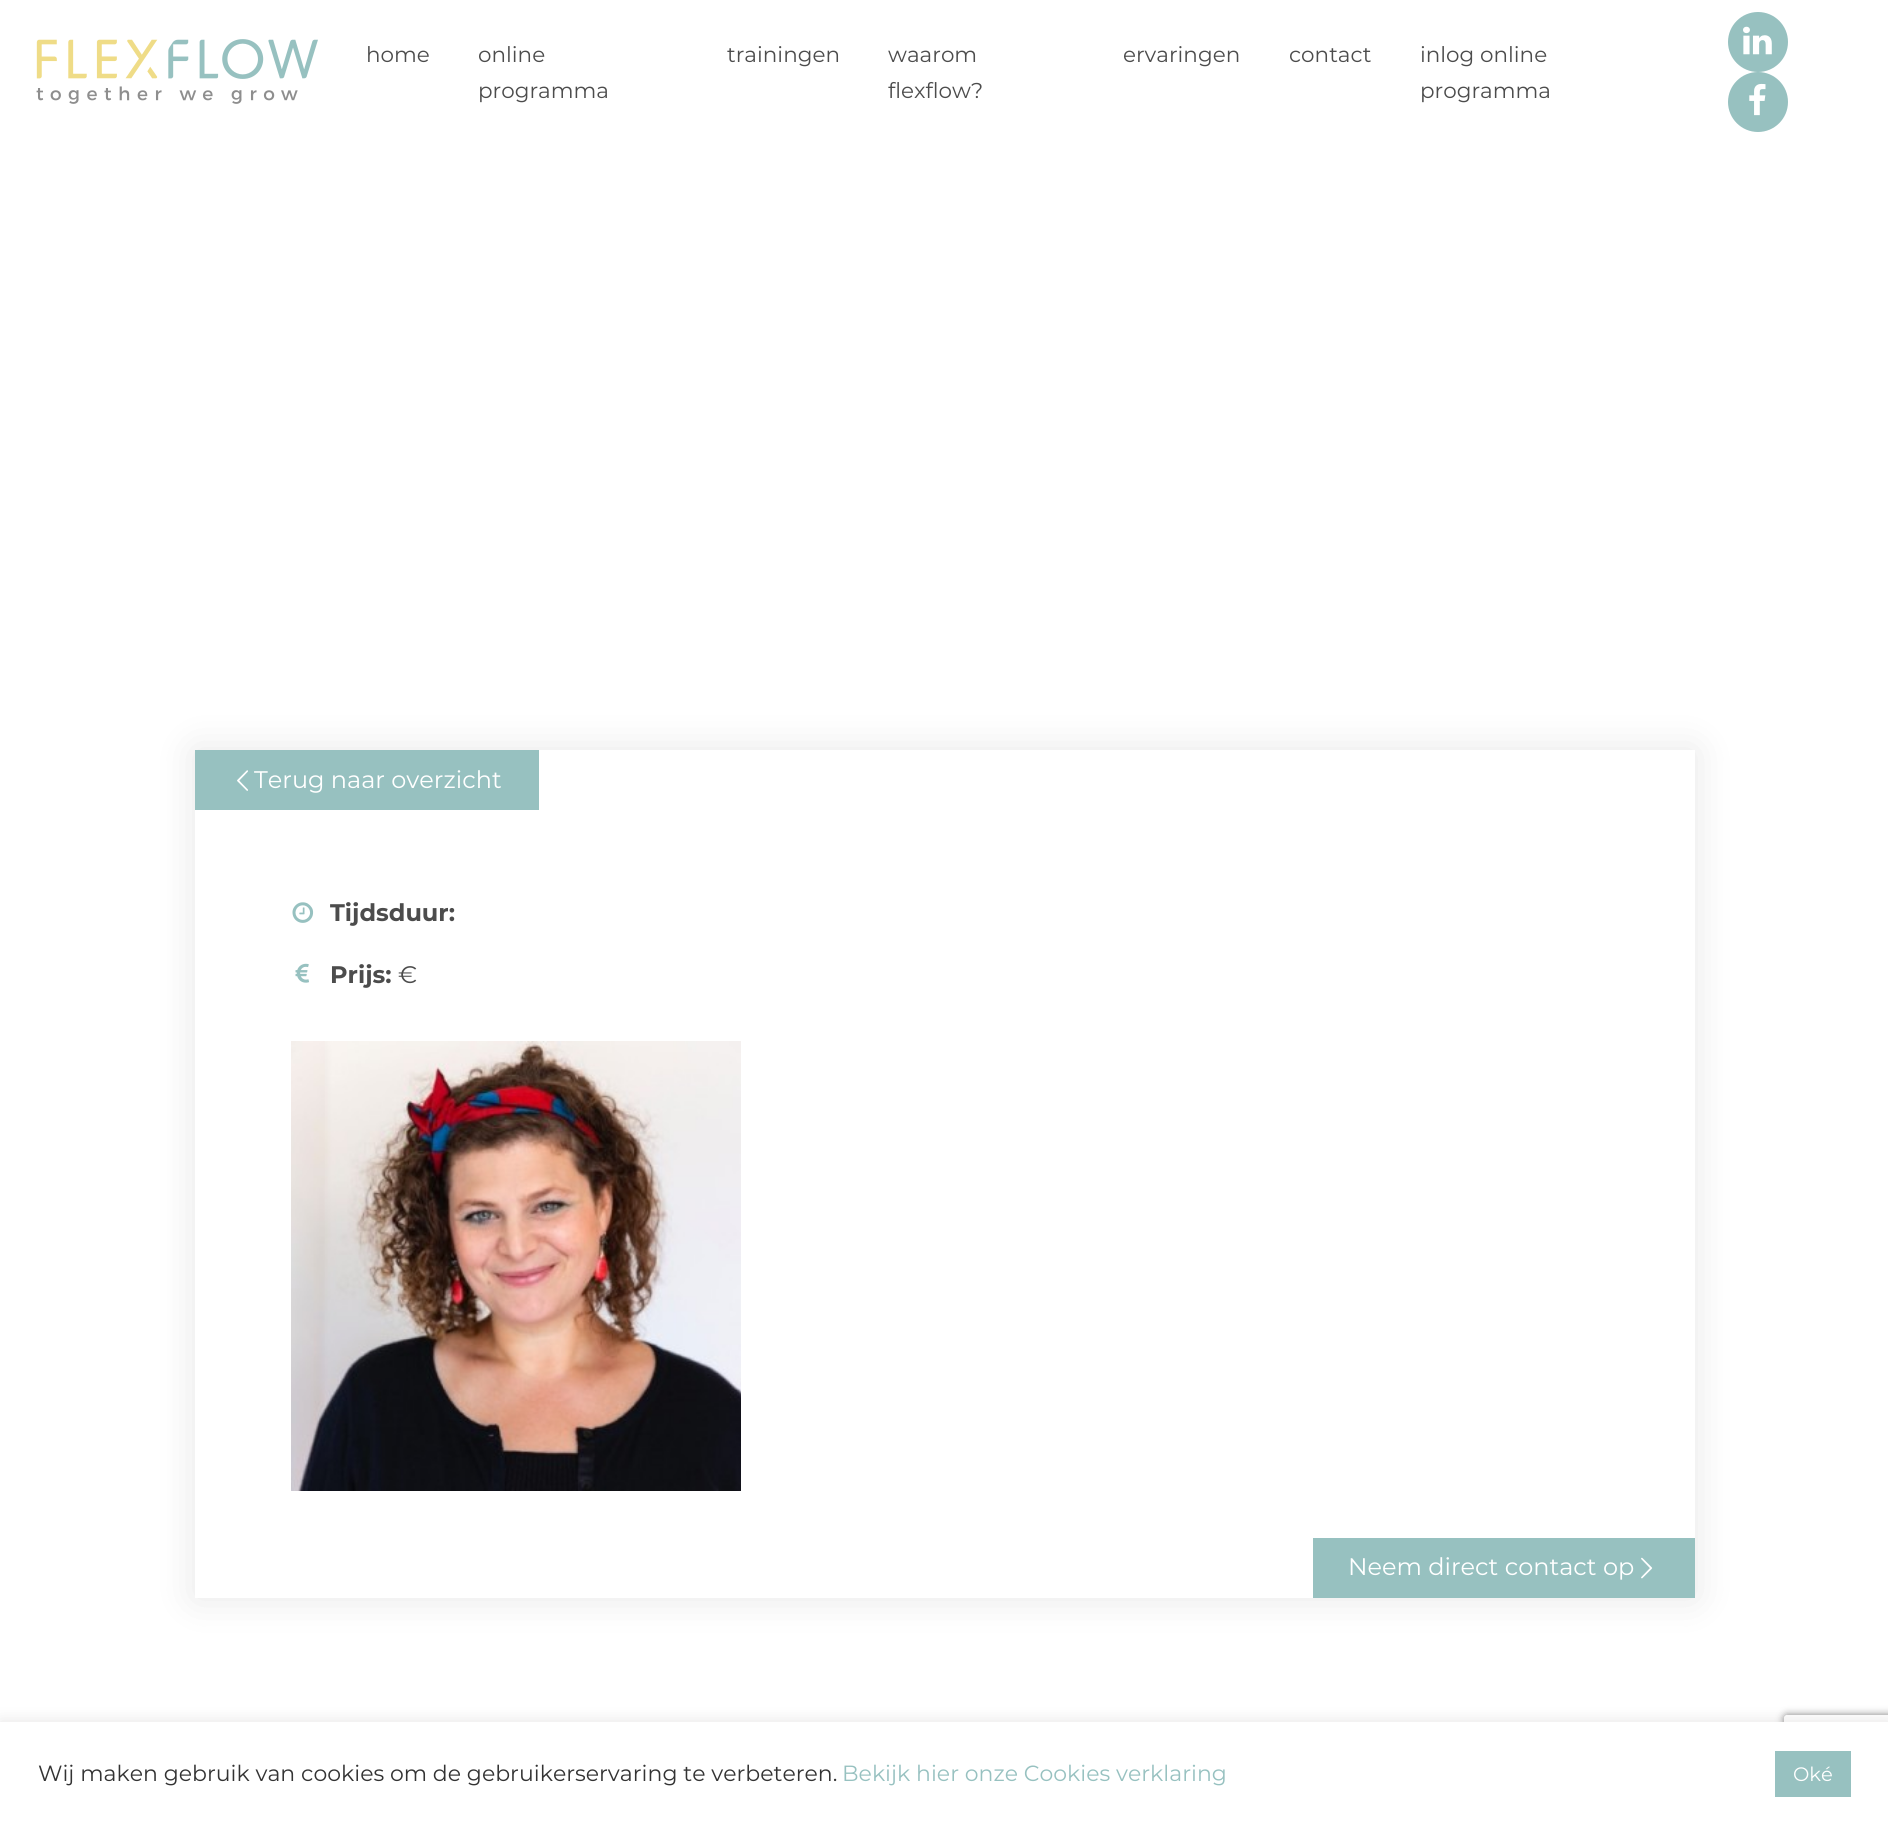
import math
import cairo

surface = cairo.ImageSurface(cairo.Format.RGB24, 1888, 1825)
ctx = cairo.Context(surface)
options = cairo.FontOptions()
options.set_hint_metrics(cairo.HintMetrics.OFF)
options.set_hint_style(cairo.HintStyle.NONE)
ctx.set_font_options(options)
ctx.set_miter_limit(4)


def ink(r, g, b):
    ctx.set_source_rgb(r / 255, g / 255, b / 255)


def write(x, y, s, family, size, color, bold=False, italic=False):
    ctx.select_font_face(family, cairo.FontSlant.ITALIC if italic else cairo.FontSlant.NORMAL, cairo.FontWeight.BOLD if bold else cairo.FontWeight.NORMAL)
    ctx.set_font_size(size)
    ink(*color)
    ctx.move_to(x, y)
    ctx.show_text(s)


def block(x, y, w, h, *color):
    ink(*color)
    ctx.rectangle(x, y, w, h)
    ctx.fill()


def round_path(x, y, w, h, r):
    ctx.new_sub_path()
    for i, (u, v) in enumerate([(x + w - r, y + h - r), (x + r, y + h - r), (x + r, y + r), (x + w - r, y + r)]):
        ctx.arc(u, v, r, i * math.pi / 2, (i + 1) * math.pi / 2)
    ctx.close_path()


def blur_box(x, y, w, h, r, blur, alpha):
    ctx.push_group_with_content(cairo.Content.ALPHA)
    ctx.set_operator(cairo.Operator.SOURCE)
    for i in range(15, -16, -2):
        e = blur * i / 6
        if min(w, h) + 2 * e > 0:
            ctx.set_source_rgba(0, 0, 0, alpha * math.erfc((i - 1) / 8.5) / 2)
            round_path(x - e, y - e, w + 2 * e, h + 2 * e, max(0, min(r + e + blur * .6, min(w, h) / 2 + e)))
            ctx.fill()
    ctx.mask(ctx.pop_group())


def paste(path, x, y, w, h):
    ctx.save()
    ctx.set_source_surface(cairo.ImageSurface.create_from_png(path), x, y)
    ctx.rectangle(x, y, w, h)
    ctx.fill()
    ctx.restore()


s1 = dict(family="Montserrat", size=21.5, color=(76, 76, 76))
s2 = dict(family="Montserrat", size=24, color=(255, 255, 255))
s3 = dict(family="Montserrat", size=24, color=(76, 76, 76), bold=True)
s4 = dict(family="Montserrat", size=24, color=(76, 76, 76))
s5 = dict(family="Montserrat", size=22, color=(51, 51, 51))
s6 = dict(family="Montserrat", size=22, color=(151, 193, 192))
s7 = dict(family="Montserrat", size=19.5, color=(255, 255, 255))

ink(255, 255, 255)
ctx.paint()
paste("pic1.png", 36, 39, 282, 65)
write(366, 62, "home", **s1)
write(478, 62, "online", **s1)
write(478, 98, "programma", **s1)
write(727, 62, "trainingen", **s1)
write(888, 62, "waarom", **s1)
write(888, 98, "flexflow?", **s1)
write(1123, 62, "ervaringen", **s1)
write(1289, 62, "contact", **s1)
write(1420, 62, "inlog online", **s1)
write(1420, 98, "programma", **s1)
ink(151, 193, 192)
ctx.new_path()
ctx.arc(1758, 42, 30, 0, 2 * math.pi)
ctx.fill()
paste("pic2.png", 1743, 26, 29, 29)
ctx.arc(1758, 102, 30, 0, 2 * math.pi)
ctx.fill()
paste("pic3.png", 1749, 83, 17, 33)
ink(0, 0, 0)
blur_box(195, 750, 1500, 848, 0, 19, 0.1)
block(195, 750, 1500, 848, 255, 255, 255)
block(195, 750, 344, 60, 151, 193, 192)
paste("pic4.png", 237, 770, 11, 21)
write(254, 788, "Terug naar overzicht", **s2)
paste("pic5.png", 292, 902, 22, 21)
write(330, 921, "Tijdsduur:", **s3)
paste("pic6.png", 295, 963, 14, 20)
write(330, 983, "Prijs:", **s3)
write(398, 983, "€", **s4)
paste("pic7.png", 291, 1041, 450, 450)
block(1313, 1538, 382, 60, 151, 193, 192)
write(1348, 1575, "Neem direct contact op", **s2)
paste("pic8.png", 1641, 1557, 12, 22)
ctx.save()
ctx.set_fill_rule(cairo.FillRule.EVEN_ODD)
ctx.new_path()
ctx.move_to(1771, 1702)
ctx.line_to(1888, 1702)
ctx.line_to(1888, 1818)
ctx.line_to(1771, 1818)
ctx.close_path()
ctx.move_to(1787, 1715)
ctx.line_to(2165, 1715)
ctx.curve_to(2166.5, 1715, 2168, 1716.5, 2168, 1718)
ctx.line_to(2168, 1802)
ctx.curve_to(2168, 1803.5, 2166.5, 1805, 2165, 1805)
ctx.line_to(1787, 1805)
ctx.curve_to(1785.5, 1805, 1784, 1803.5, 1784, 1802)
ctx.line_to(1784, 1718)
ctx.curve_to(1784, 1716.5, 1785.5, 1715, 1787, 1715)
ctx.close_path()
ctx.clip()
ink(128, 128, 128)
blur_box(1784, 1715, 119, 90, 3, 4, 1)
ctx.restore()
ink(172, 171, 171)
blur_box(0, 1721, 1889, 103, 0, 7.5, 0.3)
block(0, 1722, 1888, 103, 255, 255, 255)
write(38, 1781, "Wij maken gebruik van cookies om de gebruikerservaring te verbeteren.", **s5)
write(842, 1781, "Bekijk hier onze Cookies verklaring", **s6)
block(1775, 1751, 76, 46, 151, 193, 192)
write(1793, 1781, "Oké", **s7)
surface.write_to_png("screenshot.png")
